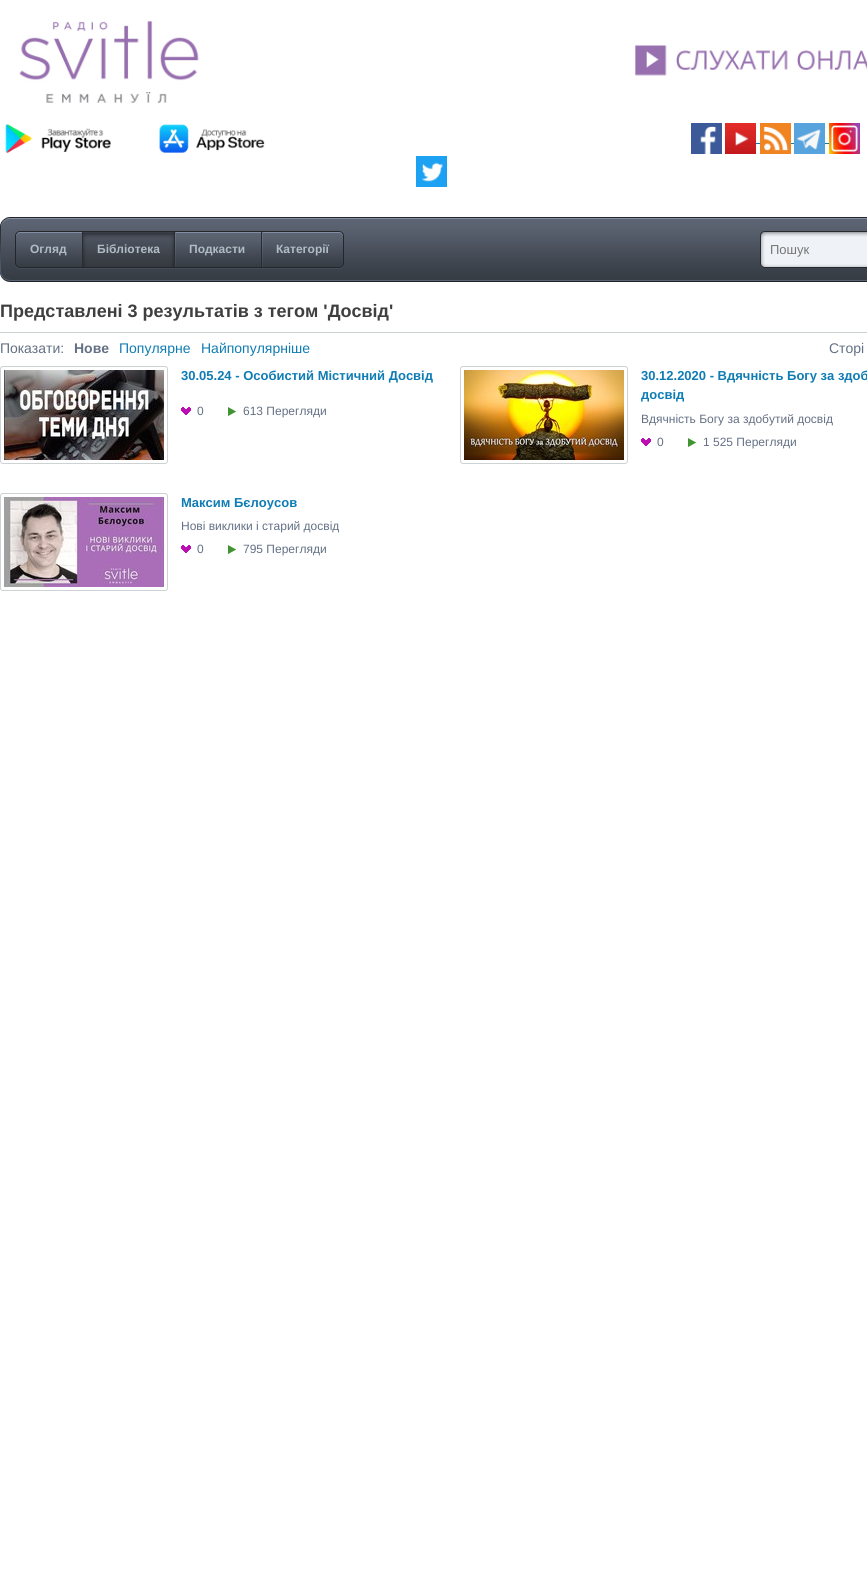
import math
import cairo

surface = cairo.ImageSurface(cairo.Format.RGB24, 867, 1592)
ctx = cairo.Context(surface)
options = cairo.FontOptions()
options.set_hint_metrics(cairo.HintMetrics.OFF)
options.set_hint_style(cairo.HintStyle.NONE)
ctx.set_font_options(options)
ctx.set_miter_limit(4)


def ink(r, g, b):
    ctx.set_source_rgb(r / 255, g / 255, b / 255)


def write(x, y, s, family, size, color, bold=False, italic=False):
    ctx.select_font_face(family, cairo.FontSlant.ITALIC if italic else cairo.FontSlant.NORMAL, cairo.FontWeight.BOLD if bold else cairo.FontWeight.NORMAL)
    ctx.set_font_size(size)
    ink(*color)
    ctx.move_to(x, y)
    ctx.show_text(s)


def block(x, y, w, h, *color):
    ink(*color)
    ctx.rectangle(x, y, w, h)
    ctx.fill()


def round_path(x, y, w, h, r):
    ctx.new_sub_path()
    for i, (u, v) in enumerate([(x + w - r, y + h - r), (x + r, y + h - r), (x + r, y + r), (x + w - r, y + r)]):
        ctx.arc(u, v, r, i * math.pi / 2, (i + 1) * math.pi / 2)
    ctx.close_path()


def paste(path, x, y, w, h):
    ctx.save()
    ctx.set_source_surface(cairo.ImageSurface.create_from_png(path), x, y)
    ctx.rectangle(x, y, w, h)
    ctx.fill()
    ctx.restore()


s1 = dict(family="Liberation Sans", size=12, color=(176, 188, 197), bold=True)
s2 = dict(family="Liberation Sans", size=13, color=(117, 117, 117))
s3 = dict(family="Liberation Sans", size=18, color=(63, 63, 63), bold=True)
s4 = dict(family="Liberation Sans", size=14, color=(99, 112, 132))
s5 = dict(family="Liberation Sans", size=14, color=(99, 112, 132), bold=True)
s6 = dict(family="Liberation Sans", size=14, color=(15, 124, 180))
s7 = dict(family="Liberation Sans", size=13, color=(15, 124, 180), bold=True)
s8 = dict(family="Liberation Sans", size=12, color=(99, 112, 132))

ink(255, 255, 255)
ctx.paint()
paste("pic1.png", 19, 21, 848, 82)
paste("pic2.png", 5, 124, 106, 30)
paste("pic3.png", 159, 124, 106, 29)
paste("pic4.png", 691, 123, 31, 31)
paste("pic5.png", 725, 123, 31, 31)
block(756, 143, 4, 1, 15, 124, 180)
paste("pic6.png", 760, 123, 31, 31)
block(791, 143, 3, 1, 15, 124, 180)
paste("pic7.png", 794, 123, 31, 31)
block(825, 143, 4, 1, 15, 124, 180)
paste("pic8.png", 829, 123, 31, 31)
paste("pic9.png", 416, 156, 31, 31)
paste("pic10.png", 0, 217, 867, 65)
paste("pic11.png", 15, 231, 5, 38)
paste("pic12.png", 20, 231, 57, 38)
write(30, 253, "Огляд", **s1)
paste("pic13.png", 77, 231, 5, 38)
paste("pic14.png", 82, 231, 5, 38)
paste("pic15.png", 87, 231, 82, 38)
write(97, 253, "Бібліотека", **s1)
paste("pic16.png", 169, 231, 5, 38)
paste("pic17.png", 174, 231, 5, 38)
paste("pic18.png", 179, 231, 77, 38)
write(189, 253, "Подкасти", **s1)
paste("pic13.png", 256, 231, 5, 38)
paste("pic17.png", 261, 231, 5, 38)
paste("pic19.png", 266, 231, 73, 38)
write(276, 253, "Категорії", **s1)
paste("pic20.png", 339, 231, 5, 38)
paste("pic21.png", 760, 231, 107, 37)
write(770, 254, "Пошук", **s2)
write(0, 317, "Представлені 3 результатів з тегом 'Досвід'", **s3)
block(0, 332, 867, 1, 205, 210, 213)
write(0, 353, "Показати:", **s4)
write(74, 353, "Нове", **s5)
write(119, 353, "Популярне", **s6)
write(201, 353, "Найпопулярніше", **s6)
write(829, 353, "Сторі", **s4)
round_path(0.5, 366.5, 167, 97, 2.5)
ink(205, 210, 213)
ctx.set_line_width(1)
ctx.stroke()
paste("pic22.png", 4, 370, 160, 90)
write(181, 380, "30.05.24 - Особистий Містичний Досвід", **s7)
paste("pic23.png", 181, 407, 10, 8)
write(197, 415, "0", **s8)
paste("pic24.png", 228, 407, 8, 9)
write(243, 415, "613 Перегляди", **s8)
round_path(460.5, 366.5, 167, 97, 2.5)
ink(205, 210, 213)
ctx.stroke()
paste("pic25.png", 464, 370, 160, 90)
write(641, 380, "30.12.2020 - Вдячність Богу за здоб", **s7)
write(641, 399, "досвід", **s7)
write(641, 423, "Вдячність Богу за здобутий досвід", **s8)
paste("pic23.png", 641, 438, 10, 8)
write(657, 446, "0", **s8)
paste("pic24.png", 688, 438, 8, 9)
write(703, 446, "1 525 Перегляди", **s8)
round_path(0.5, 493.5, 167, 97, 2.5)
ink(205, 210, 213)
ctx.stroke()
paste("pic26.png", 4, 497, 160, 90)
write(181, 507, "Максим Бєлоусов", **s7)
write(181, 530, "Нові виклики і старий досвід", **s8)
paste("pic23.png", 181, 545, 10, 8)
write(197, 553, "0", **s8)
paste("pic24.png", 228, 545, 8, 9)
write(243, 553, "795 Перегляди", **s8)
surface.write_to_png("screenshot.png")
